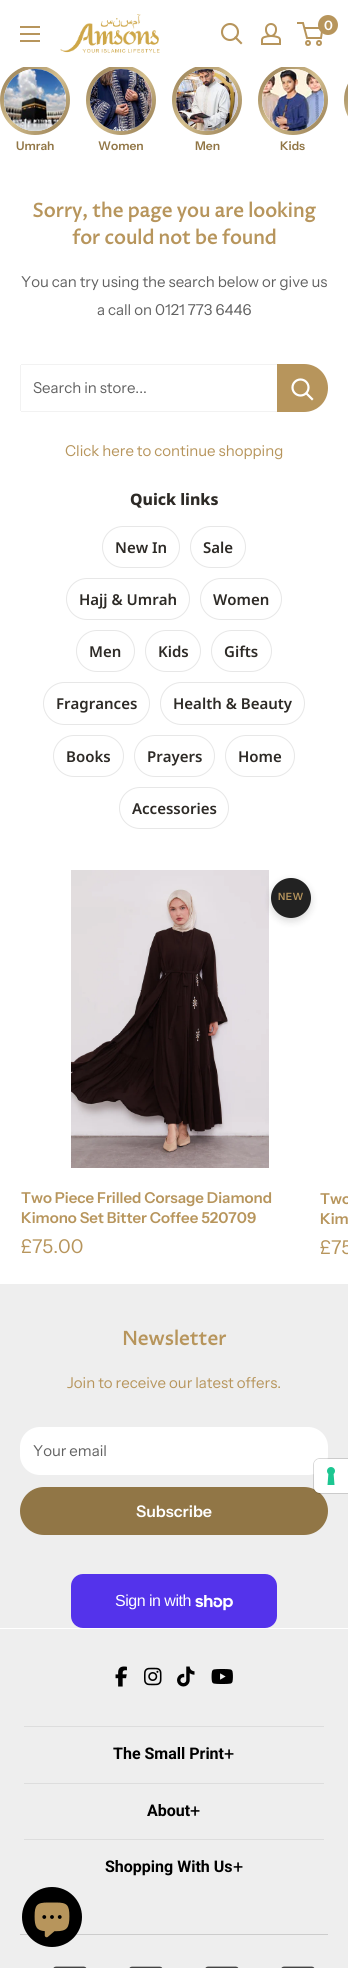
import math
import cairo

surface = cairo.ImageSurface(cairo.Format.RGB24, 348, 1968)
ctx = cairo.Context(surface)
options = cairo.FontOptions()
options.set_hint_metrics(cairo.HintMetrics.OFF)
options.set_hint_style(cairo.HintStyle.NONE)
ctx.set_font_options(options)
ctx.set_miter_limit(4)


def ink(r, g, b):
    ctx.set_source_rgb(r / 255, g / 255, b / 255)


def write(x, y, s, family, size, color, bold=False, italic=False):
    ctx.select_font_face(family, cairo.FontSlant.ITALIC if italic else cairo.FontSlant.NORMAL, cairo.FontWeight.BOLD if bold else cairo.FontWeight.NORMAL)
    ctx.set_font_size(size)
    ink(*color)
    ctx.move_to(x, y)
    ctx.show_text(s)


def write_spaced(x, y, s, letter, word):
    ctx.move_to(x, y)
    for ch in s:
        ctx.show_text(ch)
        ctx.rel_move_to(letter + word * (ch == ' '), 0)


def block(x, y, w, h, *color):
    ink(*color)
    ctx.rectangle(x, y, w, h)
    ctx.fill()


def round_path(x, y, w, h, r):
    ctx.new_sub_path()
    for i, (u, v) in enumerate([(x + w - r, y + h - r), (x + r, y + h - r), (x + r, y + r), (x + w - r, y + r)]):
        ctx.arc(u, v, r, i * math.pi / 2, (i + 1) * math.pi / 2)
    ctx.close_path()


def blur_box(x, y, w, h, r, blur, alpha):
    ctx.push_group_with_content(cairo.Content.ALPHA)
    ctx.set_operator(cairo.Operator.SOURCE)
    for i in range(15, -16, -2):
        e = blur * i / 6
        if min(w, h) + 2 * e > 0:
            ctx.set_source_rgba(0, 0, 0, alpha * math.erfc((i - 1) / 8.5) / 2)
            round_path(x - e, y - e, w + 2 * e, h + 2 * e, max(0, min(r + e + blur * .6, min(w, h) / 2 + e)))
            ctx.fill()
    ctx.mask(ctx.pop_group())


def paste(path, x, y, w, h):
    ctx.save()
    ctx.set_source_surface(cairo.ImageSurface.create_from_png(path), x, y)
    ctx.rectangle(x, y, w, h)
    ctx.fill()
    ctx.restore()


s1 = dict(family="Instrument Sans SemiBold", size=13, color=(255, 255, 255))
s2 = dict(family="Instrument Sans SemiBold", size=12, color=(145, 118, 70))
s3 = dict(family="Proza Libre", size=19, color=(183, 149, 92), bold=True)
s4 = dict(family="Instrument Sans", size=15, color=(97, 97, 97))
s5 = dict(family="Instrument Sans", size=15, color=(183, 149, 92))
s6 = dict(family="Noto Sans ExtraBold", size=15.75, color=(45, 42, 38))
s7 = dict(family="Noto Sans SemiBold", size=15, color=(45, 42, 38))
s8 = dict(family="Instrument Sans SemiBold", size=15, color=(183, 149, 92))
s9 = dict(family="Instrument Sans", size=19, color=(183, 149, 92))
s10 = dict(family="Instrument Sans SemiBold", size=16, color=(255, 255, 255))
s11 = dict(family="Roboto", size=16, color=(0, 0, 0), bold=True)
s12 = dict(family="Roboto", size=18, color=(0, 0, 0))

ink(255, 255, 255)
ctx.paint()
gradient = cairo.LinearGradient(0, 65, 70, 135)
gradient.add_color_stop_rgba(0, 0.565, 0.467, 0.306, 1)
gradient.add_color_stop_rgba(0.5, 0.835, 0.753, 0.561, 1)
gradient.add_color_stop_rgba(1, 0.565, 0.467, 0.306, 1)
ctx.set_source(gradient)
ctx.arc(35, 100, 35, 0, 2 * math.pi)
ctx.fill()
gradient = cairo.LinearGradient(86, 65, 156, 135)
gradient.add_color_stop_rgba(0, 0.565, 0.467, 0.306, 1)
gradient.add_color_stop_rgba(0.5, 0.835, 0.753, 0.561, 1)
gradient.add_color_stop_rgba(1, 0.565, 0.467, 0.306, 1)
ctx.set_source(gradient)
ctx.arc(121, 100, 35, 0, 2 * math.pi)
ctx.fill()
gradient = cairo.LinearGradient(172, 65, 242, 135)
gradient.add_color_stop_rgba(0, 0.565, 0.467, 0.306, 1)
gradient.add_color_stop_rgba(0.5, 0.835, 0.753, 0.561, 1)
gradient.add_color_stop_rgba(1, 0.565, 0.467, 0.306, 1)
ctx.set_source(gradient)
ctx.arc(207, 100, 35, 0, 2 * math.pi)
ctx.fill()
gradient = cairo.LinearGradient(258, 65, 328, 135)
gradient.add_color_stop_rgba(0, 0.565, 0.467, 0.306, 1)
gradient.add_color_stop_rgba(0.5, 0.835, 0.753, 0.561, 1)
gradient.add_color_stop_rgba(1, 0.565, 0.467, 0.306, 1)
ctx.set_source(gradient)
ctx.arc(293, 100, 35, 0, 2 * math.pi)
ctx.fill()
block(23, 65, 282, 2, 255, 255, 255)
paste("pic1.png", 20, 26, 20, 16)
paste("pic2.png", 60, 14, 100, 39)
ctx.new_path()
ctx.move_to(241, 43)
ctx.line_to(235.5, 37.5)
ink(183, 149, 92)
ctx.set_line_width(2.1)
ctx.set_line_cap(cairo.LineCap.SQUARE)
ctx.stroke()
ctx.arc(230, 32, 8, 0, 2 * math.pi)
ctx.set_line_cap(cairo.LineCap.BUTT)
ctx.stroke()
paste("pic3.png", 261, 23, 20, 22)
ctx.arc(308, 43, 2, 0, 2 * math.pi)
ctx.set_line_width(2)
ctx.stroke()
ctx.arc(319, 43, 2, 0, 2 * math.pi)
ctx.stroke()
ctx.new_path()
ctx.move_to(304.5, 28)
ctx.line_to(322.5, 28)
ctx.line_to(321, 38)
ctx.line_to(307, 38)
ctx.line_to(303, 23)
ctx.line_to(297, 23)
ctx.stroke()
ctx.arc(328, 25, 10, 0, 2 * math.pi)
ctx.fill()
write(324, 30, "0", **s1)
gradient = cairo.LinearGradient(344, 65, 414, 135)
gradient.add_color_stop_rgba(0, 0.565, 0.467, 0.306, 1)
gradient.add_color_stop_rgba(0.5, 0.835, 0.753, 0.561, 1)
gradient.add_color_stop_rgba(1, 0.565, 0.467, 0.306, 1)
ctx.set_source(gradient)
ctx.new_path()
ctx.move_to(379, 65)
ctx.line_to(348, 65)
ctx.line_to(348, 135)
ctx.line_to(379, 135)
ctx.curve_to(359.5, 135, 344, 119.5, 344, 100)
ctx.curve_to(344, 80.5, 359.5, 65, 379, 65)
ctx.close_path()
ctx.fill()
ink(255, 255, 255)
ctx.arc(35, 100, 31, 0, 2 * math.pi)
ctx.fill()
paste("pic4.png", 4, 69, 62, 62)
write(16, 150, "Umrah", **s2)
ink(255, 255, 255)
ctx.new_path()
ctx.arc(121, 100, 31, 0, 2 * math.pi)
ctx.fill()
paste("pic5.png", 90, 69, 62, 62)
write(98, 150, "Women", **s2)
ink(255, 255, 255)
ctx.new_path()
ctx.arc(207, 100, 31, 0, 2 * math.pi)
ctx.fill()
paste("pic6.png", 176, 69, 62, 62)
write(195, 150, "Men", **s2)
ink(255, 255, 255)
ctx.new_path()
ctx.arc(293, 100, 31, 0, 2 * math.pi)
ctx.fill()
paste("pic7.png", 262, 69, 62, 62)
write(280, 150, "Kids", **s2)
write(32, 217, "Sorry, the page you are looking", **s3)
write(72, 244, "for could not be found", **s3)
write(21, 287, "You can try using the search below or give us", **s4)
write(97, 315, "a call on 0121 773 6446", **s4)
block(21, 364, 256, 1, 242, 242, 242)
block(21, 411, 256, 1, 242, 242, 242)
block(20, 365, 1, 46, 242, 242, 242)
write(33, 393, "Search in store...", **s4)
ink(183, 149, 92)
ctx.new_path()
ctx.move_to(277, 364)
ctx.line_to(304, 364)
ctx.curve_to(317.5, 364, 328, 374.5, 328, 388)
ctx.curve_to(328, 401.5, 317.5, 412, 304, 412)
ctx.line_to(277, 412)
ctx.close_path()
ctx.fill()
ctx.new_path()
ctx.move_to(312, 399)
ctx.line_to(306.5, 393.5)
ink(255, 255, 255)
ctx.set_line_width(2.2)
ctx.set_line_cap(cairo.LineCap.SQUARE)
ctx.stroke()
ctx.arc(300.5, 387.5, 8, 0, 2 * math.pi)
ctx.set_line_cap(cairo.LineCap.BUTT)
ctx.stroke()
write(65, 456, "Click here to continue shopping", **s5)
write(130, 505, "Quick links", **s6)
round_path(102.5, 526.5, 77, 41, 20.5)
ink(231, 231, 231)
ctx.set_line_width(1)
ctx.stroke()
write(115, 553, "New In", **s7)
round_path(190.5, 526.5, 55, 41, 20.5)
ink(231, 231, 231)
ctx.stroke()
write(203, 553, "Sale", **s7)
round_path(66.5, 578.5, 123, 41, 20.5)
ink(231, 231, 231)
ctx.stroke()
write(79, 605, "Hajj & Umrah", **s7)
round_path(200.5, 578.5, 81, 41, 20.5)
ink(231, 231, 231)
ctx.stroke()
write(213, 605, "Women", **s7)
round_path(76.5, 630.5, 58, 41, 20.5)
ink(231, 231, 231)
ctx.stroke()
write(89, 657, "Men", **s7)
round_path(145.5, 630.5, 55, 41, 20.5)
ink(231, 231, 231)
ctx.stroke()
write(158, 657, "Kids", **s7)
round_path(211.5, 630.5, 60, 41, 20.5)
ink(231, 231, 231)
ctx.stroke()
write(224, 657, "Gifts", **s7)
round_path(43.5, 682.5, 106, 42, 21)
ink(231, 231, 231)
ctx.stroke()
write(56, 709, "Fragrances", **s7)
round_path(160.5, 682.5, 144, 42, 21)
ink(231, 231, 231)
ctx.stroke()
write(173, 709, "Health & Beauty", **s7)
round_path(53.5, 735.5, 70, 41, 20.5)
ink(231, 231, 231)
ctx.stroke()
write(66, 762, "Books", **s7)
round_path(134.5, 735.5, 80, 41, 20.5)
ink(231, 231, 231)
ctx.stroke()
write(147, 762, "Prayers", **s7)
round_path(225.5, 735.5, 69, 41, 20.5)
ink(231, 231, 231)
ctx.stroke()
write(238, 762, "Home", **s7)
round_path(119.5, 787.5, 109, 41, 20.5)
ink(231, 231, 231)
ctx.stroke()
write(132, 814, "Accessories", **s7)
paste("pic8.png", 71, 870, 198, 298)
ink(0, 0, 0)
blur_box(271, 881, 40, 40, 20, 4, 0.15)
ink(34, 34, 34)
ctx.arc(291, 898, 20, 0, 2 * math.pi)
ctx.fill()
ctx.select_font_face("Instrument Sans SemiBold")
ctx.set_font_size(10)
ink(183, 149, 92)
write_spaced(278, 900, "NEW", 0.5, 0)
write(21, 1203, "Two Piece Frilled Corsage Diamond", **s8)
write(21, 1223, "Kimono Set Bitter Coffee 520709", **s8)
write(21, 1253, "£75.00", **s9)
write(320, 1204, "Two", **s8)
write(320, 1224, "Kim", **s8)
write(320, 1254, "£75", **s9)
block(0, 1284, 348, 344, 238, 238, 238)
write(122, 1345, "Newsletter", **s3)
write(67, 1388, "Join to receive our latest offers.", **s5)
ink(255, 255, 255)
round_path(20, 1427, 308, 48, 20)
ctx.fill()
write(33, 1456, "Your email", **s4)
ink(145, 118, 70)
round_path(20, 1487, 308, 48, 24)
ctx.fill()
write(136, 1517, "Subscribe", **s10)
ctx.new_path()
ctx.move_to(320, 1458.5)
ctx.line_to(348.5, 1458.5)
ctx.line_to(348.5, 1493.5)
ctx.line_to(320, 1493.5)
ctx.curve_to(316.5, 1493.5, 313.5, 1490.5, 313.5, 1487)
ctx.line_to(313.5, 1465)
ctx.curve_to(313.5, 1461.5, 316.5, 1458.5, 320, 1458.5)
ctx.close_path()
ctx.set_source_rgba(0, 0, 0, 0.15)
ctx.stroke()
ink(255, 255, 255)
ctx.new_path()
ctx.move_to(320, 1459)
ctx.line_to(348, 1459)
ctx.line_to(348, 1493)
ctx.line_to(320, 1493)
ctx.curve_to(316.5, 1493, 314, 1490.5, 314, 1487)
ctx.line_to(314, 1465)
ctx.curve_to(314, 1461.5, 316.5, 1459, 320, 1459)
ctx.close_path()
ctx.fill()
paste("pic9.png", 327, 1467, 8, 18)
ink(84, 51, 235)
round_path(71, 1574, 206, 54, 12)
ctx.fill()
ctx.select_font_face("Liberation Sans")
ink(255, 255, 255)
write_spaced(115, 1606, "Sign in with", -0.5, 0)
paste("pic10.png", 195, 1595, 38, 16)
block(0, 1629, 348, 339, 238, 238, 238)
paste("pic11.png", 115, 1666, 12, 21)
paste("pic12.png", 144, 1667, 18, 19)
paste("pic13.png", 177, 1666, 18, 21)
paste("pic14.png", 211, 1669, 22, 15)
block(24, 1726, 300, 1, 221, 221, 221)
write(113, 1759, "The Small Print", **s11)
write(224, 1760, "+", **s12)
block(24, 1783, 300, 1, 221, 221, 221)
write(147, 1816, "About", **s11)
write(190, 1817, "+", **s12)
block(24, 1839, 300, 1, 221, 221, 221)
write(105, 1872, "Shopping With Us", **s11)
write(233, 1873, "+", **s12)
block(20, 1934, 308, 1, 204, 204, 204)
paste("pic15.png", 53, 1966, 34, 2)
paste("pic16.png", 129, 1966, 34, 2)
paste("pic15.png", 205, 1966, 34, 2)
paste("pic15.png", 281, 1966, 34, 2)
ink(0, 0, 0)
ctx.arc(52, 1917, 30, 0, 2 * math.pi)
ctx.fill()
paste("pic17.png", 34, 1902, 36, 36)
surface.write_to_png("screenshot.png")
